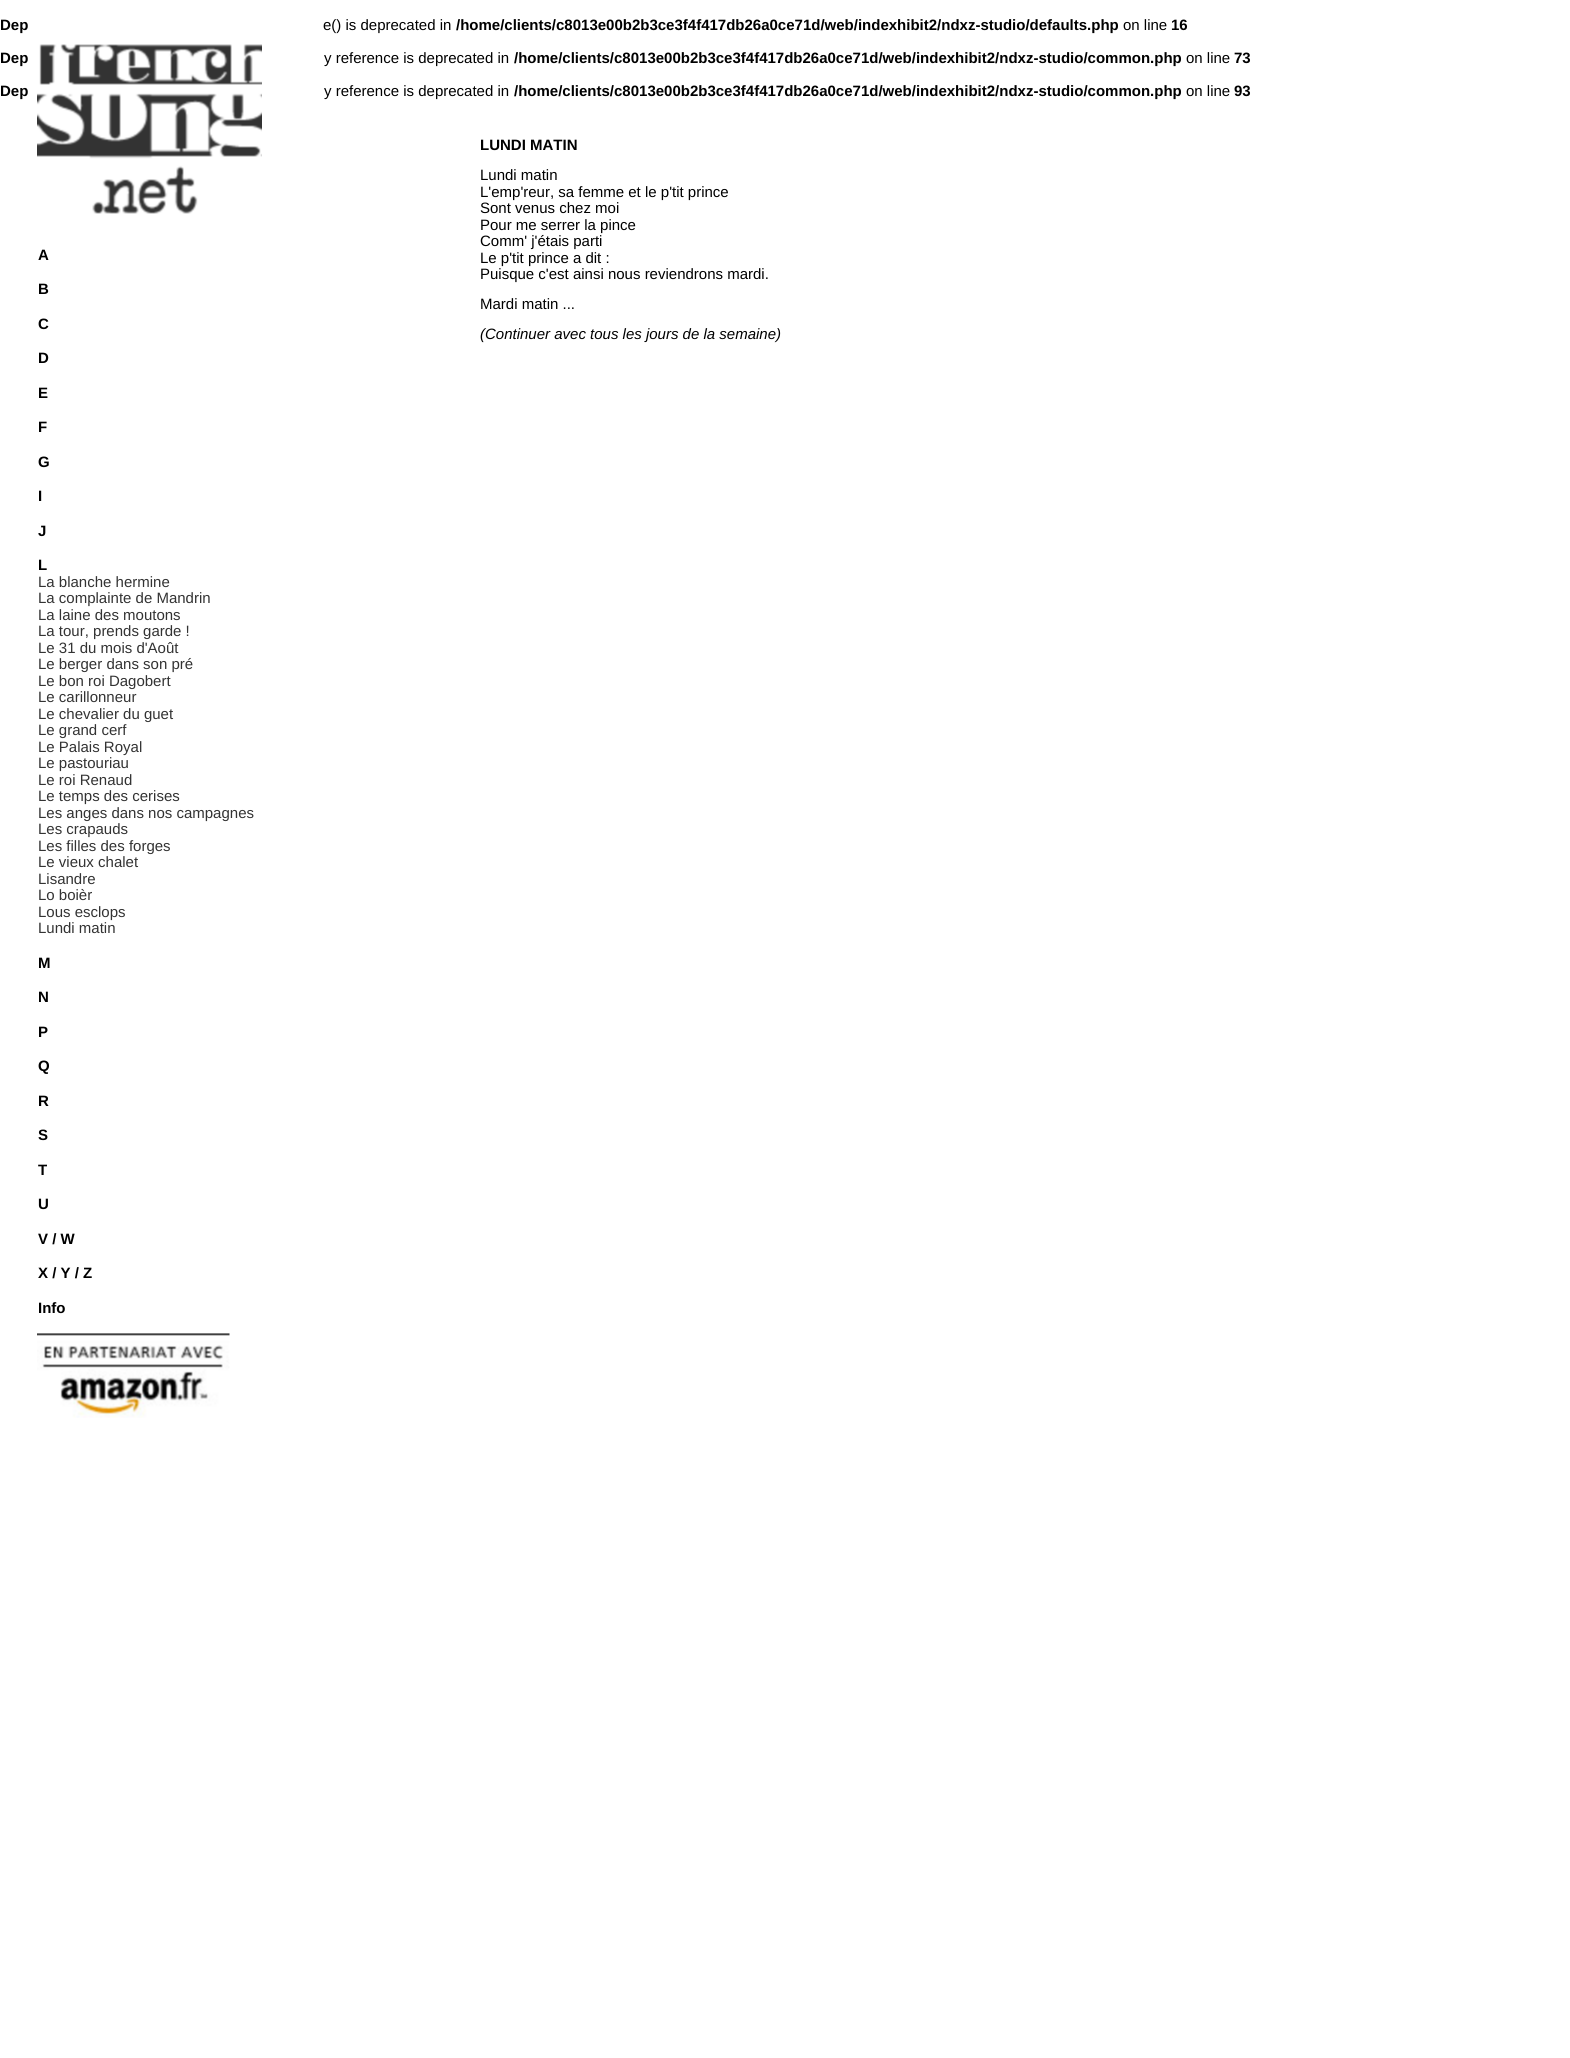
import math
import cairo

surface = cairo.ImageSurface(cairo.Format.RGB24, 1570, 2058)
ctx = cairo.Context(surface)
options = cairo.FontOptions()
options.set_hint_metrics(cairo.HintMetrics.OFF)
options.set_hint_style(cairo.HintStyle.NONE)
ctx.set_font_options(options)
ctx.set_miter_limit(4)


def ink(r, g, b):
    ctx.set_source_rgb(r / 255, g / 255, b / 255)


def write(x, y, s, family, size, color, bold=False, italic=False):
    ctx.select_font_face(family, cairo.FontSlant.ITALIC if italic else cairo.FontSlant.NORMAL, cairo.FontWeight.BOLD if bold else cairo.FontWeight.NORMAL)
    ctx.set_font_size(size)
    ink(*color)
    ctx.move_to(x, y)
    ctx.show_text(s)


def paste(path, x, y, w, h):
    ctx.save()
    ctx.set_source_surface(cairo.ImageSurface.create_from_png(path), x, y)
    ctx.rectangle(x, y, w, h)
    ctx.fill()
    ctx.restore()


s1 = dict(family="Liberation Sans", size=15, color=(0, 0, 0), bold=True)
s2 = dict(family="Liberation Sans", size=15, color=(0, 0, 0))
s3 = dict(family="Liberation Sans", size=15, color=(51, 51, 51))
s4 = dict(family="Liberation Sans", size=15, color=(0, 0, 0), italic=True)

ink(255, 255, 255)
ctx.paint()
write(0, 30, "Dep", **s1)
write(323, 30, "e() is deprecated in", **s2)
write(456, 30, "/home/clients/c8013e00b2b3ce3f4f417db26a0ce71d/web/indexhibit2/ndxz-studio/defaults.php", **s1)
write(1123, 30, "on line", **s2)
write(1171, 30, "16", **s1)
write(0, 63, "Dep", **s1)
write(324, 63, "y reference is deprecated in", **s2)
write(514, 63, "/home/clients/c8013e00b2b3ce3f4f417db26a0ce71d/web/indexhibit2/ndxz-studio/common.php", **s1)
write(1186, 63, "on line", **s2)
write(1234, 63, "73", **s1)
write(0, 96, "Dep", **s1)
write(324, 96, "y reference is deprecated in", **s2)
write(514, 96, "/home/clients/c8013e00b2b3ce3f4f417db26a0ce71d/web/indexhibit2/ndxz-studio/common.php", **s1)
write(1186, 96, "on line", **s2)
write(1234, 96, "93", **s1)
paste("pic1.png", 37, 44, 225, 170)
write(38, 260, "A", **s1)
write(38, 294, "B", **s1)
write(38, 329, "C", **s1)
write(38, 363, "D", **s1)
write(38, 398, "E", **s1)
write(38, 432, "F", **s1)
write(38, 467, "G", **s1)
write(38, 501, "I", **s1)
write(38, 536, "J", **s1)
write(38, 570, "L", **s1)
write(38, 587, "La blanche hermine", **s3)
write(38, 603, "La complainte de Mandrin", **s3)
write(38, 620, "La laine des moutons", **s3)
write(38, 636, "La tour, prends garde !", **s3)
write(38, 653, "Le 31 du mois d'Août", **s3)
write(38, 669, "Le berger dans son pré", **s3)
write(38, 686, "Le bon roi Dagobert", **s3)
write(38, 702, "Le carillonneur", **s3)
write(38, 719, "Le chevalier du guet", **s3)
write(38, 735, "Le grand cerf", **s3)
write(38, 752, "Le Palais Royal", **s3)
write(38, 768, "Le pastouriau", **s3)
write(38, 785, "Le roi Renaud", **s3)
write(38, 801, "Le temps des cerises", **s3)
write(38, 818, "Les anges dans nos campagnes", **s3)
write(38, 834, "Les crapauds", **s3)
write(38, 851, "Les filles des forges", **s3)
write(38, 867, "Le vieux chalet", **s3)
write(38, 884, "Lisandre", **s3)
write(38, 900, "Lo boièr", **s3)
write(38, 917, "Lous esclops", **s3)
write(38, 933, "Lundi matin", **s3)
write(38, 968, "M", **s1)
write(38, 1002, "N", **s1)
write(38, 1037, "P", **s1)
write(38, 1071, "Q", **s1)
write(38, 1106, "R", **s1)
write(38, 1140, "S", **s1)
write(38, 1175, "T", **s1)
write(38, 1209, "U", **s1)
write(38, 1244, "V / W", **s1)
write(38, 1278, "X / Y / Z", **s1)
write(38, 1313, "Info", **s1)
paste("pic2.png", 37, 1333, 193, 85)
write(480, 150, "LUNDI MATIN", **s1)
write(480, 180, "Lundi matin", **s2)
write(480, 197, "L'emp'reur, sa femme et le p'tit prince", **s2)
write(480, 213, "Sont venus chez moi", **s2)
write(480, 230, "Pour me serrer la pince", **s2)
write(480, 246, "Comm' j'étais parti", **s2)
write(480, 263, "Le p'tit prince a dit :", **s2)
write(480, 279, "Puisque c'est ainsi nous reviendrons mardi.", **s2)
write(480, 309, "Mardi matin ...", **s2)
write(480, 339, "(Continuer avec tous les jours de la semaine)", **s4)
surface.write_to_png("screenshot.png")
